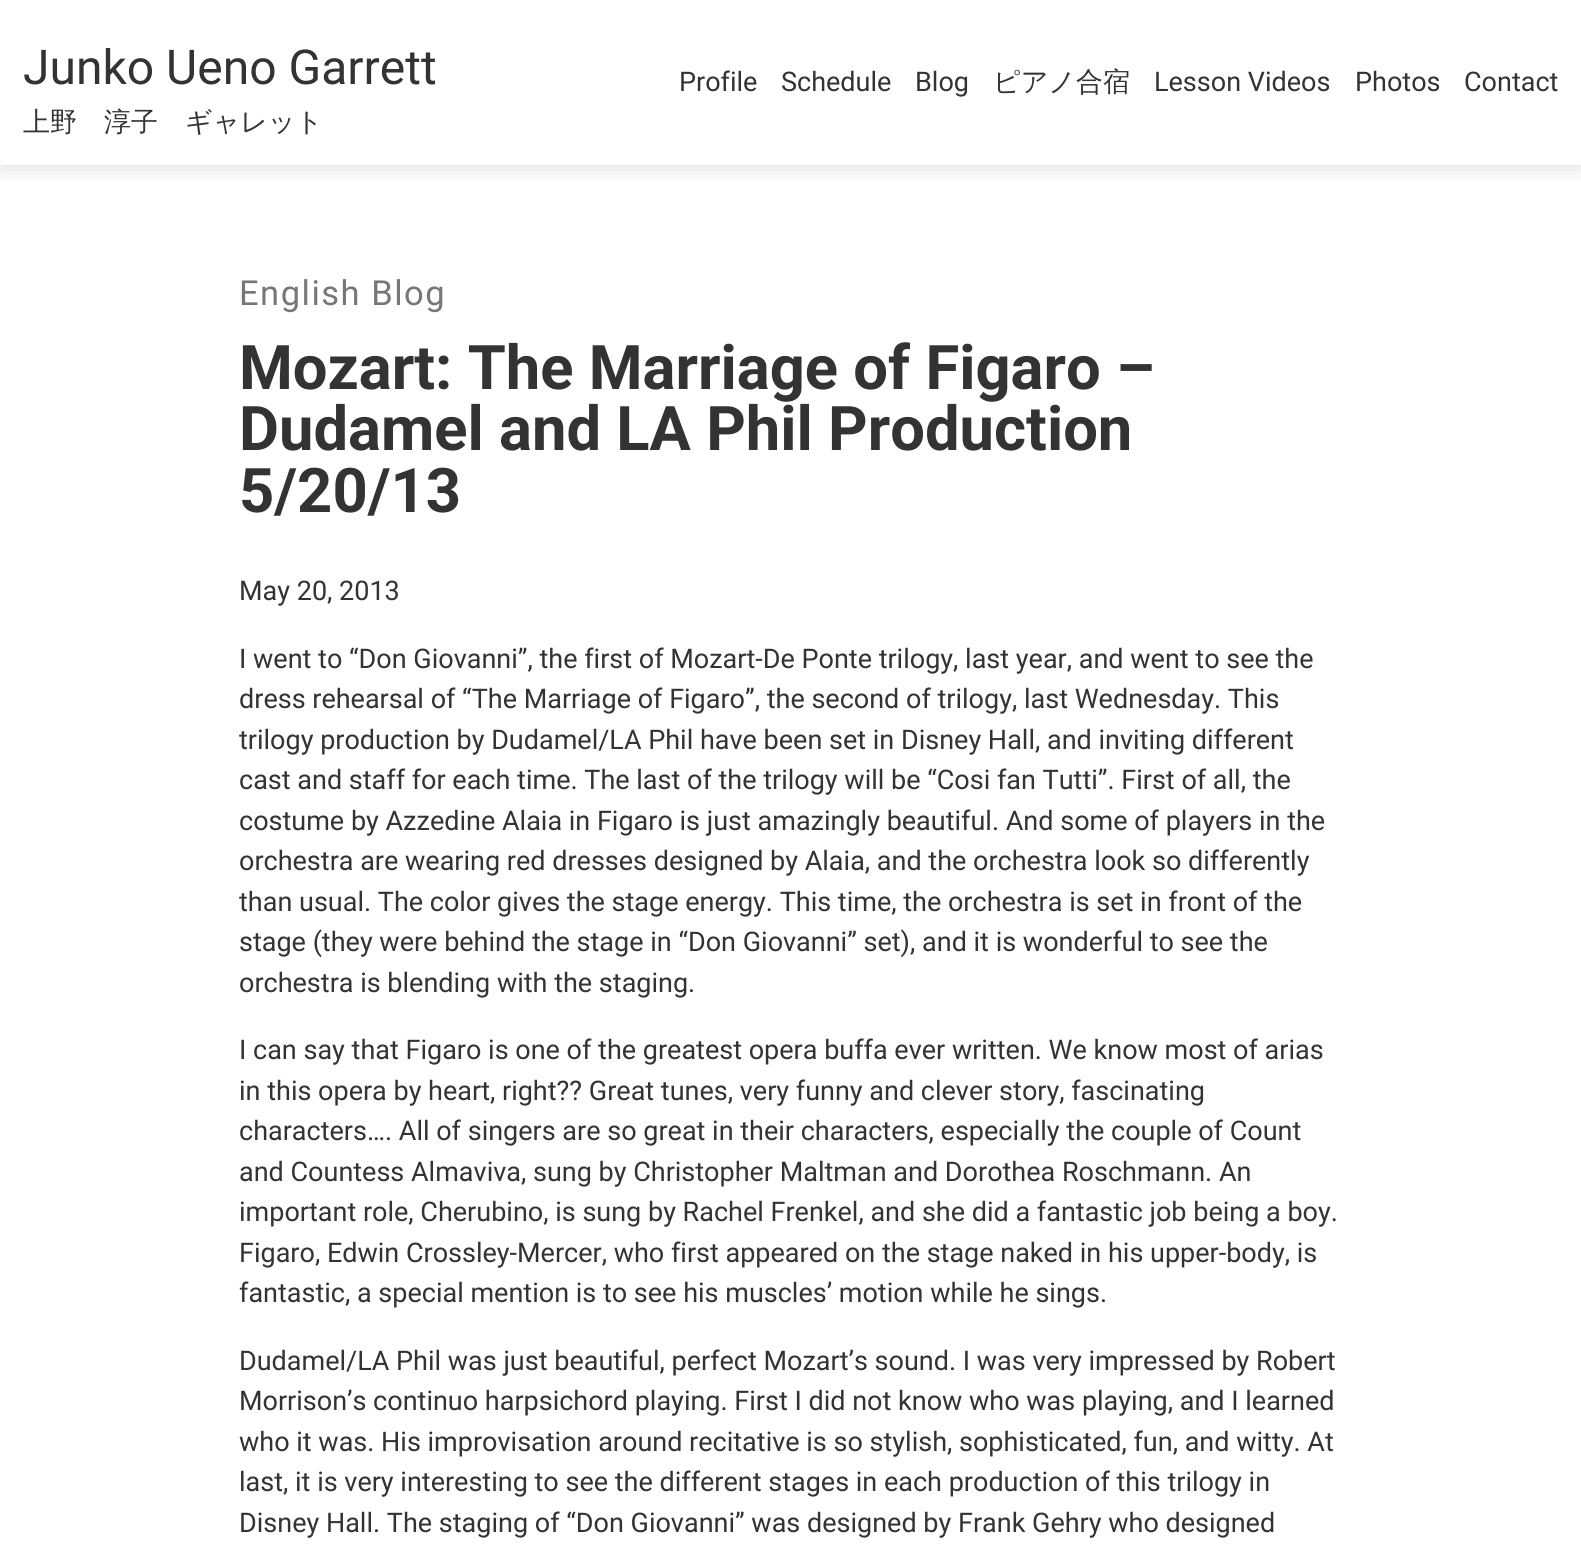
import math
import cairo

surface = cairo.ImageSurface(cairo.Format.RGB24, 1581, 1547)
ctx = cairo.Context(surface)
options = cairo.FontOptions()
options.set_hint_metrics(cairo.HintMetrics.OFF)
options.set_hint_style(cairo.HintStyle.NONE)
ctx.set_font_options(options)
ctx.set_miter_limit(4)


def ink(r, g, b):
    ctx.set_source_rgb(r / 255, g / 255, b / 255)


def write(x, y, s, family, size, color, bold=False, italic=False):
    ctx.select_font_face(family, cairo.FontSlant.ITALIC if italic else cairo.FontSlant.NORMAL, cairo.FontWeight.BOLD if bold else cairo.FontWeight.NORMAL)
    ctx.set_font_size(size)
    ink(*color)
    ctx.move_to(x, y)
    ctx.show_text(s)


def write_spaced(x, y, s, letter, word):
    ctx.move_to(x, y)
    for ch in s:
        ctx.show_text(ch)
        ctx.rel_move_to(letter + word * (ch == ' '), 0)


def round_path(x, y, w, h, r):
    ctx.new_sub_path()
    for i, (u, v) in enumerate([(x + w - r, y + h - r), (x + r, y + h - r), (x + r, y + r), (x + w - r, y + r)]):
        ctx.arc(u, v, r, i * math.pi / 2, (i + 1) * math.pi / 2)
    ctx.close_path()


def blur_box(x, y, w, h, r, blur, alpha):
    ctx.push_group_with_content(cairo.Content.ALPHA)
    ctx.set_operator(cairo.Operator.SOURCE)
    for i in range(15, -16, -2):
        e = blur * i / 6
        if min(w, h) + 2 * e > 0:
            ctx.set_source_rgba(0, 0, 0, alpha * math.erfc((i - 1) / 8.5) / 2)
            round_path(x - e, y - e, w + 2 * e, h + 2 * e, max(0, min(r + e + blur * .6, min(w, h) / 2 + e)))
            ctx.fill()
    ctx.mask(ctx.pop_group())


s1 = dict(family="Roboto", size=48, color=(51, 51, 51))
s2 = dict(family="WenQuanYi Zen Hei Medium", size=27, color=(51, 51, 51))
s3 = dict(family="Roboto", size=27, color=(51, 51, 51))
s4 = dict(family="Roboto", size=61.5, color=(51, 51, 51), bold=True)

ink(255, 255, 255)
ctx.paint()
ctx.save()
ctx.rectangle(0, 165, 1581, 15)
ctx.clip()
ink(51, 51, 51)
blur_box(0, 0, 1581, 165, 0, 12, 0.2)
ctx.restore()
write(23, 84, "Junko Ueno Garrett", **s1)
write(23, 131, "上野　淳子　ギャレット", **s2)
write(679, 91, "Profile", **s3)
write(781, 91, "Schedule", **s3)
write(915, 91, "Blog", **s3)
write(993, 91, "ピアノ合宿", **s2)
write(1154, 91, "Lesson Videos", **s3)
write(1355, 91, "Photos", **s3)
write(1464, 91, "Contact", **s3)
ctx.set_font_size(34.5)
ink(119, 119, 119)
write_spaced(239, 305, "English Blog", 1.5, 0)
write(239, 389, "Mozart: The Marriage of Figaro –", **s4)
write(239, 450, "Dudamel and LA Phil Production", **s4)
write(239, 512, "5/20/13", **s4)
write(239, 600, "May 20, 2013", **s3)
write(239, 668, "I went to “Don Giovanni”, the first of Mozart-De Ponte trilogy, last year, and went to see the", **s3)
write(239, 708, "dress rehearsal of “The Marriage of Figaro”, the second of trilogy, last Wednesday. This", **s3)
write(239, 749, "trilogy production by Dudamel/LA Phil have been set in Disney Hall, and inviting different", **s3)
write(239, 789, "cast and staff for each time. The last of the trilogy will be “Cosi fan Tutti”. First of all, the", **s3)
write(239, 830, "costume by Azzedine Alaia in Figaro is just amazingly beautiful. And some of players in the", **s3)
write(239, 870, "orchestra are wearing red dresses designed by Alaia, and the orchestra look so differently", **s3)
write(239, 911, "than usual. The color gives the stage energy. This time, the orchestra is set in front of the", **s3)
write(239, 951, "stage (they were behind the stage in “Don Giovanni” set), and it is wonderful to see the", **s3)
write(239, 992, "orchestra is blending with the staging.", **s3)
write(239, 1059, "I can say that Figaro is one of the greatest opera buffa ever written. We know most of arias", **s3)
write(239, 1100, "in this opera by heart, right?? Great tunes, very funny and clever story, fascinating", **s3)
write(239, 1140, "characters…. All of singers are so great in their characters, especially the couple of Count", **s3)
write(239, 1181, "and Countess Almaviva, sung by Christopher Maltman and Dorothea Roschmann. An", **s3)
write(239, 1221, "important role, Cherubino, is sung by Rachel Frenkel, and she did a fantastic job being a boy.", **s3)
write(239, 1262, "Figaro, Edwin Crossley-Mercer, who first appeared on the stage naked in his upper-body, is", **s3)
write(239, 1302, "fantastic, a special mention is to see his muscles’ motion while he sings.", **s3)
write(239, 1370, "Dudamel/LA Phil was just beautiful, perfect Mozart’s sound. I was very impressed by Robert", **s3)
write(239, 1410, "Morrison’s continuo harpsichord playing. First I did not know who was playing, and I learned", **s3)
write(239, 1451, "who it was. His improvisation around recitative is so stylish, sophisticated, fun, and witty. At", **s3)
write(239, 1491, "last, it is very interesting to see the different stages in each production of this trilogy in", **s3)
write(239, 1532, "Disney Hall. The staging of “Don Giovanni” was designed by Frank Gehry who designed", **s3)
surface.write_to_png("screenshot.png")
